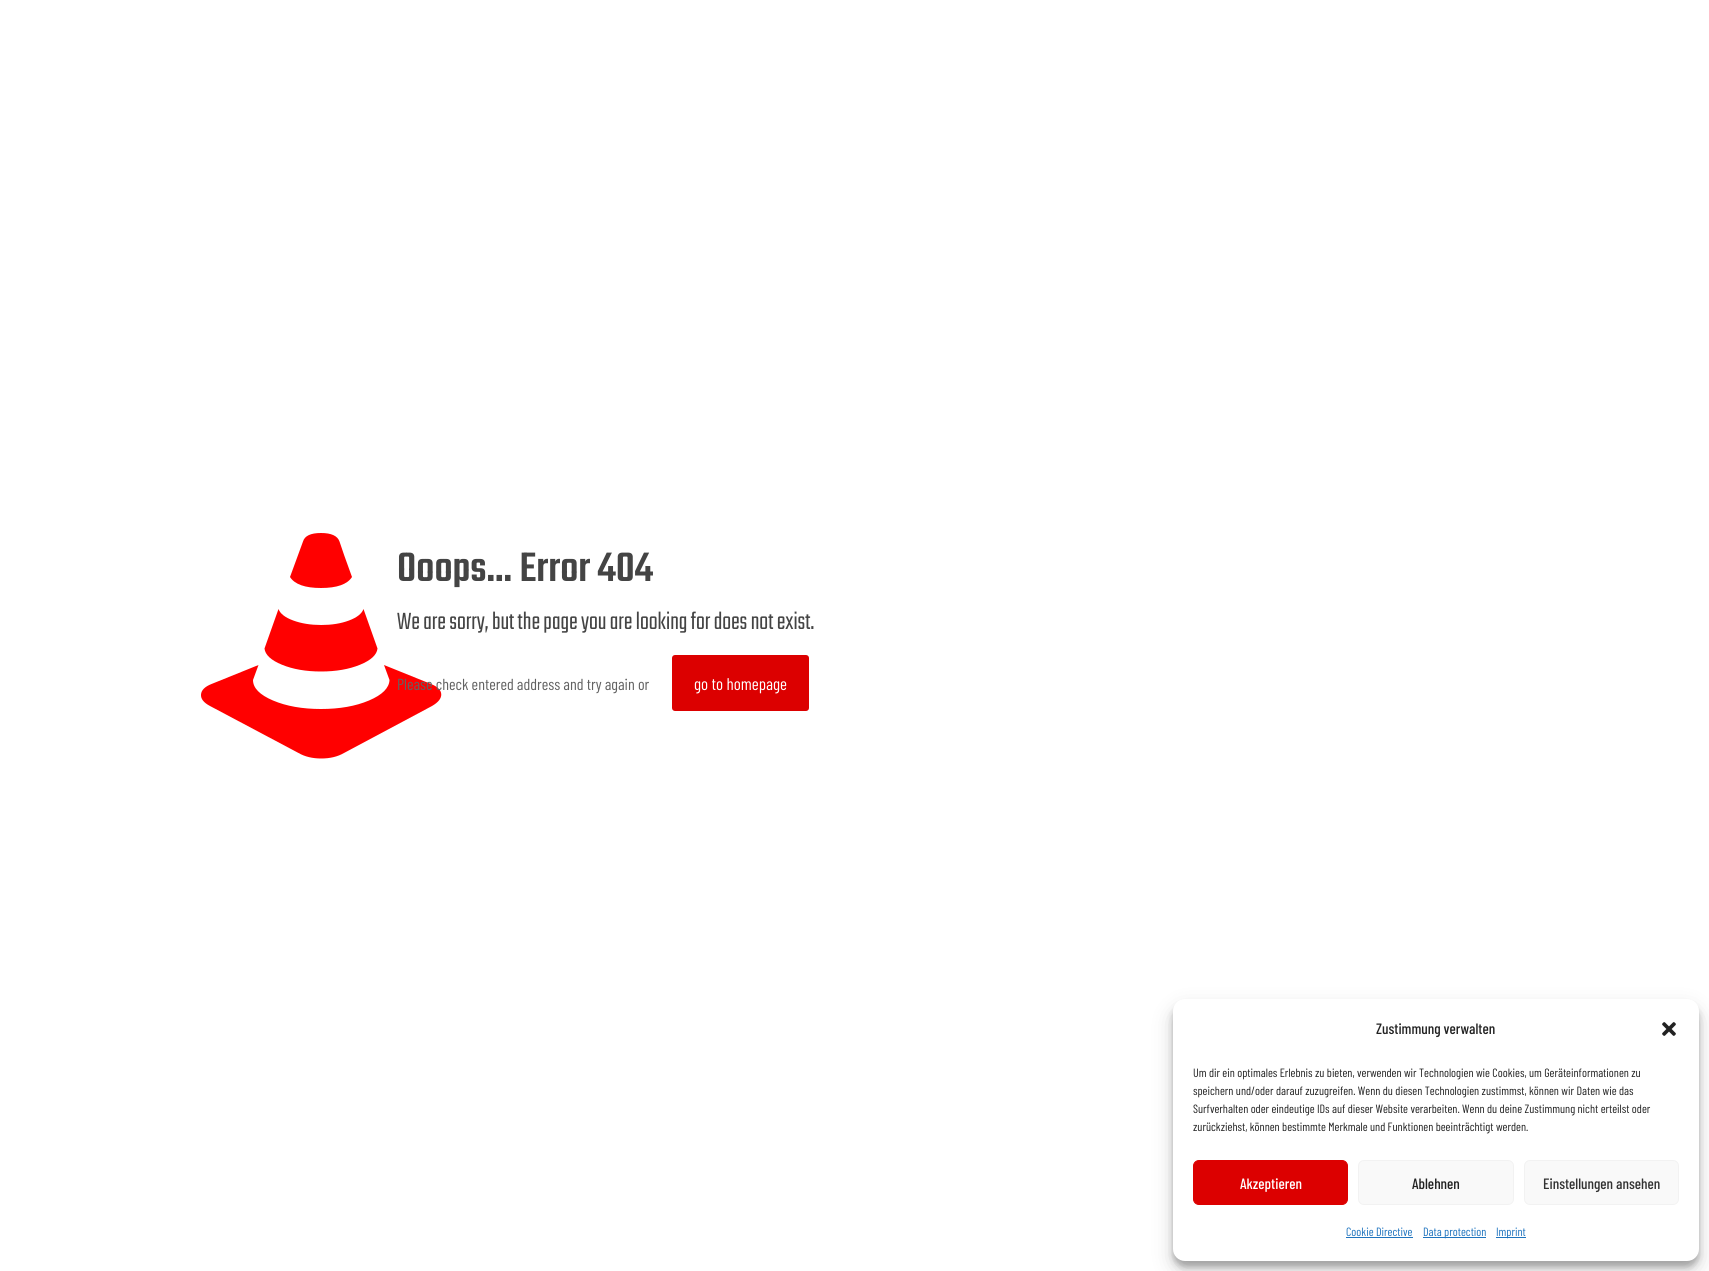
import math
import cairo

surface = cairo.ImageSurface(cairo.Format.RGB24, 1709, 1271)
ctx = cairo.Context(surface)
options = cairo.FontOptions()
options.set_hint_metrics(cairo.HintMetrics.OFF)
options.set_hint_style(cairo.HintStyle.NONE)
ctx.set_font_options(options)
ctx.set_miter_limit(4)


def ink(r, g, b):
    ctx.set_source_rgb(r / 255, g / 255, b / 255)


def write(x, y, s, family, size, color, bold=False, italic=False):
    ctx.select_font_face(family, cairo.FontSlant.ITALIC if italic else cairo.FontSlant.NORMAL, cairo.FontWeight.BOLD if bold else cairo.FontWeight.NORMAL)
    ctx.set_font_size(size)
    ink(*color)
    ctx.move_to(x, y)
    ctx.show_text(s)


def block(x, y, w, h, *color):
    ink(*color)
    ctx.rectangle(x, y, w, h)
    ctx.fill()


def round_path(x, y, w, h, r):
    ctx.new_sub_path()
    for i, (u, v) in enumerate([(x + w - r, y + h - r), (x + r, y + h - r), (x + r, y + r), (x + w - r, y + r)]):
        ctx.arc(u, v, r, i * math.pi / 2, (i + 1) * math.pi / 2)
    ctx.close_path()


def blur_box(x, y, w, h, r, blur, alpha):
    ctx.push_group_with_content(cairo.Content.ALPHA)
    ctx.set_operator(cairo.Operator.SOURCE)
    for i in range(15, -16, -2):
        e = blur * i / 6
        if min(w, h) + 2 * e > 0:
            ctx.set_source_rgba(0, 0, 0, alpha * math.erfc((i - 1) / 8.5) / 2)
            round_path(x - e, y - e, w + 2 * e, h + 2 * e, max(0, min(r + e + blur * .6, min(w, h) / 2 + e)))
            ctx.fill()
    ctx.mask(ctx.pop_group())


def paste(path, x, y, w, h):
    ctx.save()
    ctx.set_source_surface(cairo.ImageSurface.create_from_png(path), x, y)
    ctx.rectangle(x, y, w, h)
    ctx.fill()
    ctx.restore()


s1 = dict(family="Teko Medium", size=45, color=(68, 68, 68))
s2 = dict(family="Teko Light", size=26, color=(68, 68, 68))
s3 = dict(family="Barlow Condensed", size=16, color=(98, 98, 98))
s4 = dict(family="Barlow Condensed", size=17, color=(255, 255, 255))
s5 = dict(family="Barlow Condensed Medium", size=15, color=(34, 34, 34))
s6 = dict(family="Barlow Condensed", size=12, color=(34, 34, 34))
s7 = dict(family="Barlow Condensed Medium", size=15, color=(255, 255, 255))
s8 = dict(family="Barlow Condensed Medium", size=15, color=(51, 51, 51))
s9 = dict(family="Barlow Condensed", size=12, color=(30, 115, 190))

ink(255, 255, 255)
ctx.paint()
paste("pic1.png", 201, 533, 241, 226)
write(397, 581, "Ooops... Error 404", **s1)
write(397, 629, "We are sorry, but the page you are looking for does not exist.", **s2)
write(397, 690, "Please check entered address and try again or", **s3)
ink(220, 0, 0)
round_path(672, 655, 137, 56, 3)
ctx.fill()
write(694, 690, "go to homepage", **s4)
ink(0, 0, 0)
blur_box(1173, 1005, 526, 262, 12, 3, 0.23)
blur_box(1173, 1009, 526, 262, 12, 10, 0.19)
ink(255, 255, 255)
round_path(1173, 999, 526, 262, 12)
ctx.fill()
write(1376, 1034, "Zustimmung verwalten", **s5)
paste("pic2.png", 1662, 1022, 14, 14)
write(1193, 1077, "Um dir ein optimales Erlebnis zu bieten, verwenden wir Technologien wie Cookies, um Geräteinformationen zu", **s6)
write(1193, 1095, "speichern und/oder darauf zuzugreifen. Wenn du diesen Technologien zustimmst, können wir Daten wie das", **s6)
write(1193, 1113, "Surfverhalten oder eindeutige IDs auf dieser Website verarbeiten. Wenn du deine Zustimmung nicht erteilst oder", **s6)
write(1193, 1131, "zurückziehst, können bestimmte Merkmale und Funktionen beeinträchtigt werden.", **s6)
ink(220, 0, 0)
round_path(1193.5, 1160.5, 154, 44, 5.5)
ctx.fill_preserve()
ctx.set_line_width(1)
ctx.stroke()
write(1240, 1189, "Akzeptieren", **s7)
ink(249, 249, 249)
round_path(1358.5, 1160.5, 155, 44, 5.5)
ctx.fill_preserve()
ink(242, 242, 242)
ctx.stroke()
write(1412, 1189, "Ablehnen", **s5)
ink(249, 249, 249)
round_path(1524.5, 1160.5, 154, 44, 5.5)
ctx.fill_preserve()
ink(242, 242, 242)
ctx.stroke()
write(1543, 1189, "Einstellungen ansehen", **s8)
write(1346, 1236, "Cookie Directive", **s9)
block(1346, 1237, 67, 1, 30, 115, 190)
block(1423, 1237, 63, 1, 30, 115, 190)
write(1423, 1236, "Data protection", **s9)
block(1496, 1237, 30, 1, 30, 115, 190)
write(1496, 1236, "Imprint", **s9)
surface.write_to_png("screenshot.png")
